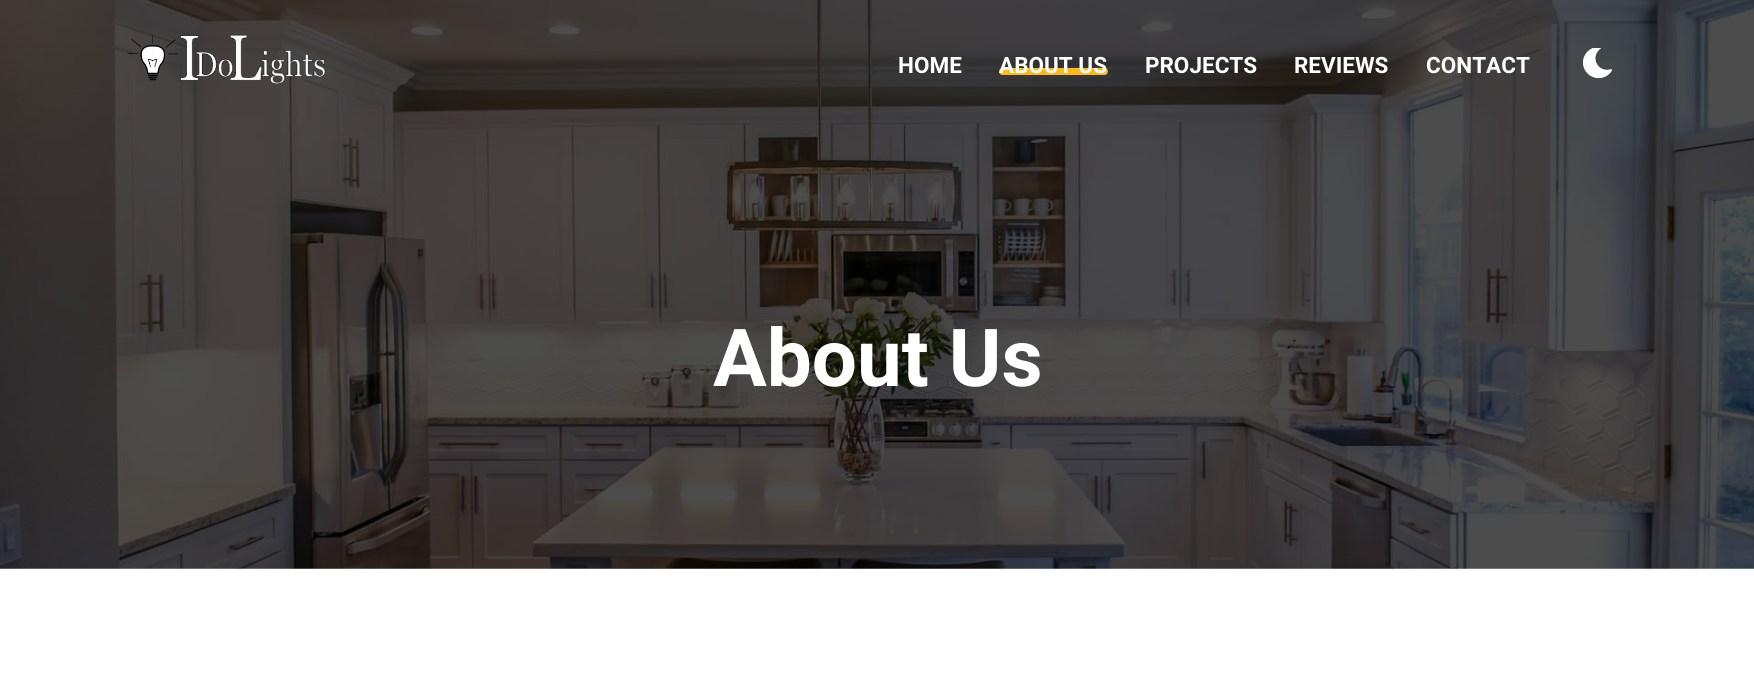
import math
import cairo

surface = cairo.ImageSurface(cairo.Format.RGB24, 1754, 687)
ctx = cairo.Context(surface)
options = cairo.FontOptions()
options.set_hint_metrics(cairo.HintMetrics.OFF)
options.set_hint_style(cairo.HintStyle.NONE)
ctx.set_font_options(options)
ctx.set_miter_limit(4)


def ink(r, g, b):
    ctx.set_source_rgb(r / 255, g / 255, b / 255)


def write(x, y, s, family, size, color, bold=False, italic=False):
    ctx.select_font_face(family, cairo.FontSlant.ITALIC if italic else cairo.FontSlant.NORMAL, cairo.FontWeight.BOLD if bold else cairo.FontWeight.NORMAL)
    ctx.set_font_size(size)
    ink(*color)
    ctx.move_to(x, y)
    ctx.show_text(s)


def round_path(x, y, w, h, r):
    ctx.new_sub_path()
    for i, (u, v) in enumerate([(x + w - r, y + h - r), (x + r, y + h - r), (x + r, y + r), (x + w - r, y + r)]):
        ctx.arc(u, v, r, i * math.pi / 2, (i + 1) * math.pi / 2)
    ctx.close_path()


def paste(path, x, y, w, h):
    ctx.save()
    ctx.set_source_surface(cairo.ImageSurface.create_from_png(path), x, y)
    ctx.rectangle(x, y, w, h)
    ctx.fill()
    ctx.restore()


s1 = dict(family="Roboto", size=22.5, color=(255, 255, 255), bold=True)
s2 = dict(family="Roboto", size=80, color=(255, 255, 255), bold=True)

ink(255, 255, 255)
ctx.paint()
paste("pic3.png", 0, 0, 1754, 569)
paste("pic1.png", 127, 34, 199, 50)
write(898, 73, "HOME", **s1)
ink(255, 186, 25)
round_path(999, 68, 109, 7, 3.5)
ctx.fill()
write(999, 73, "ABOUT US", **s1)
write(1145, 73, "PROJECTS", **s1)
write(1294, 73, "REVIEWS", **s1)
write(1426, 73, "CONTACT", **s1)
paste("pic2.png", 1583, 48, 29, 31)
write(713, 386, "About Us", **s2)
surface.write_to_png("screenshot.png")
